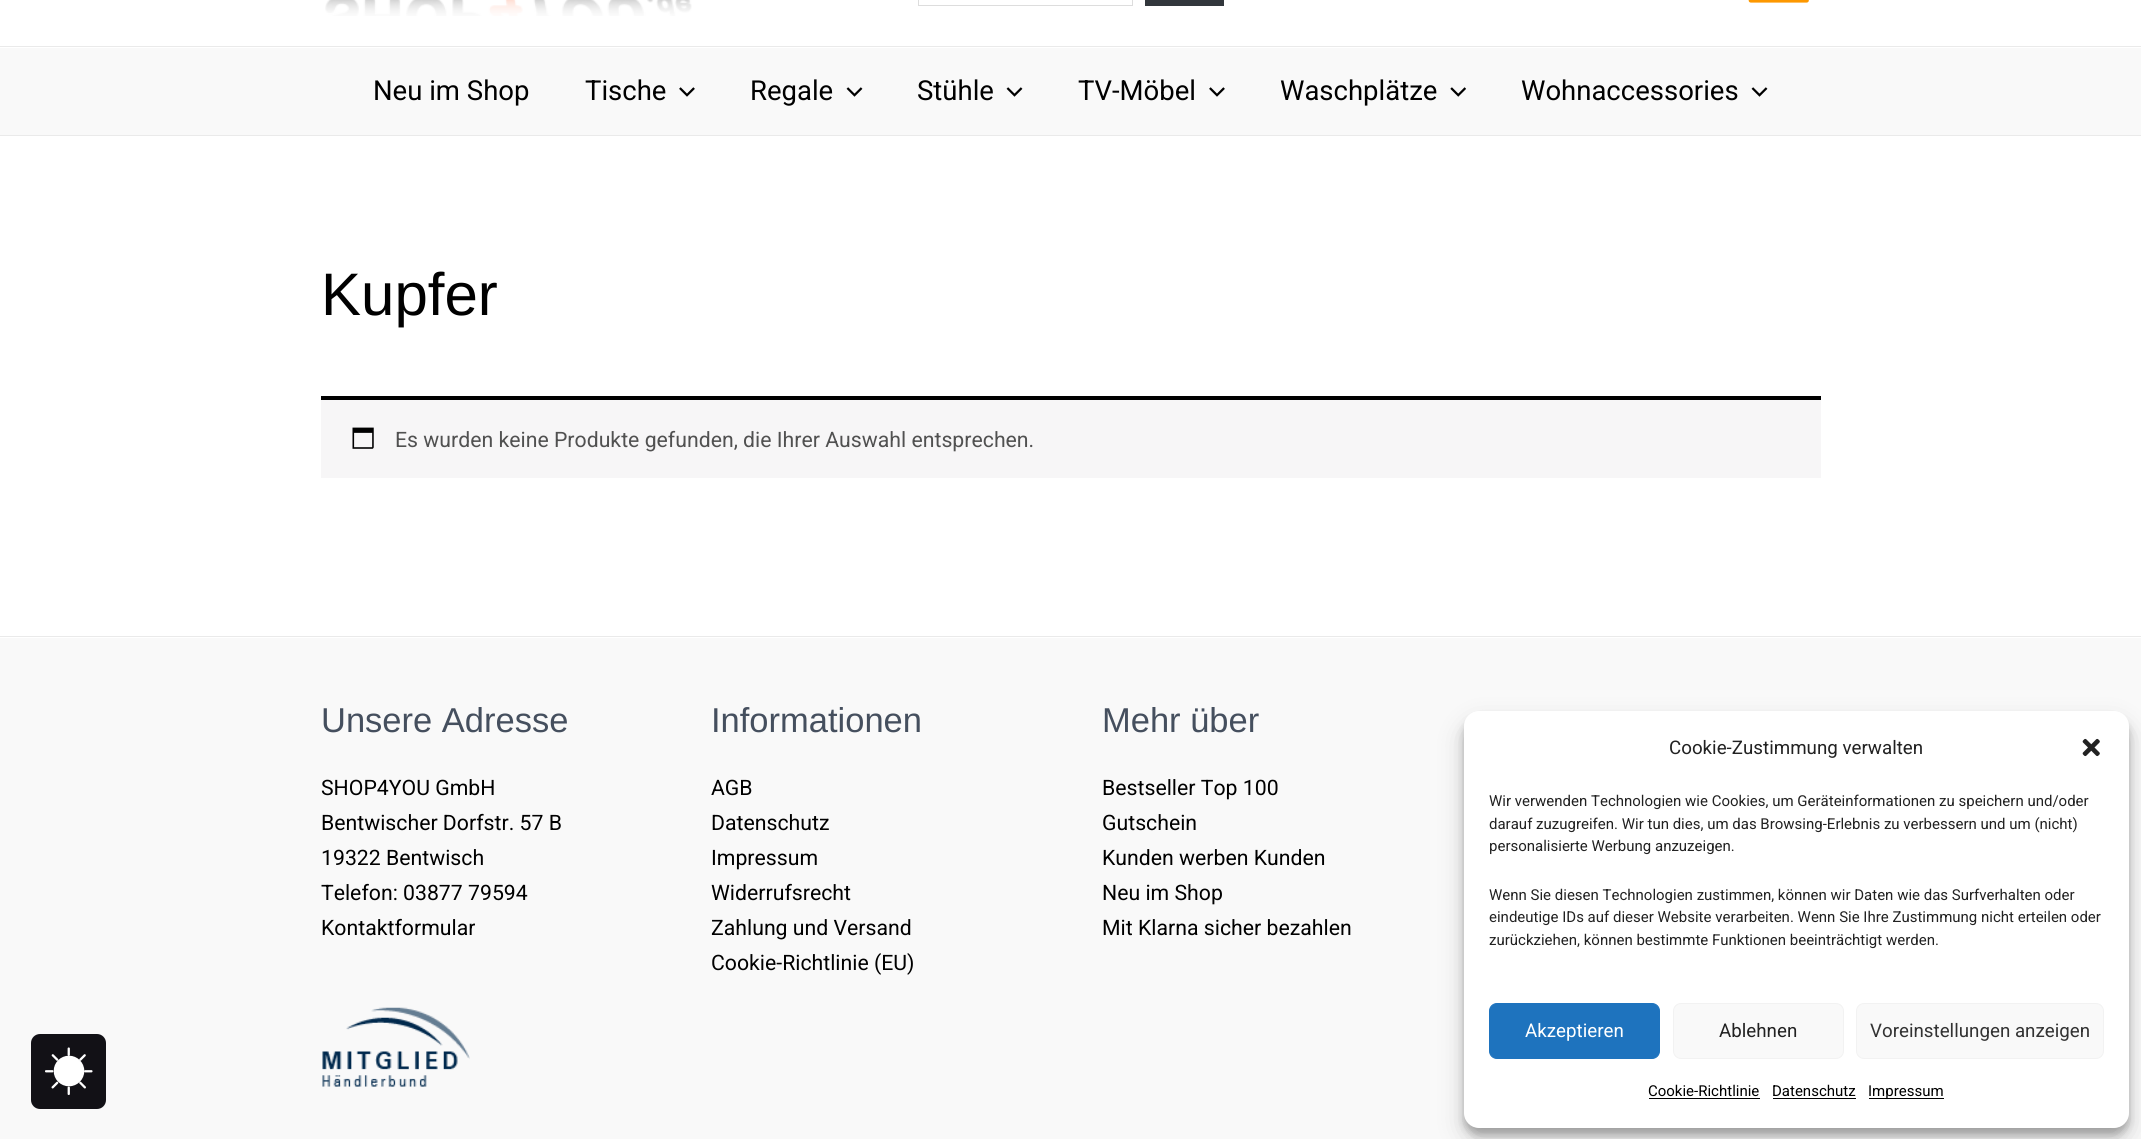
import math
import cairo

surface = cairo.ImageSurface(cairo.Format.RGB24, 2141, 1139)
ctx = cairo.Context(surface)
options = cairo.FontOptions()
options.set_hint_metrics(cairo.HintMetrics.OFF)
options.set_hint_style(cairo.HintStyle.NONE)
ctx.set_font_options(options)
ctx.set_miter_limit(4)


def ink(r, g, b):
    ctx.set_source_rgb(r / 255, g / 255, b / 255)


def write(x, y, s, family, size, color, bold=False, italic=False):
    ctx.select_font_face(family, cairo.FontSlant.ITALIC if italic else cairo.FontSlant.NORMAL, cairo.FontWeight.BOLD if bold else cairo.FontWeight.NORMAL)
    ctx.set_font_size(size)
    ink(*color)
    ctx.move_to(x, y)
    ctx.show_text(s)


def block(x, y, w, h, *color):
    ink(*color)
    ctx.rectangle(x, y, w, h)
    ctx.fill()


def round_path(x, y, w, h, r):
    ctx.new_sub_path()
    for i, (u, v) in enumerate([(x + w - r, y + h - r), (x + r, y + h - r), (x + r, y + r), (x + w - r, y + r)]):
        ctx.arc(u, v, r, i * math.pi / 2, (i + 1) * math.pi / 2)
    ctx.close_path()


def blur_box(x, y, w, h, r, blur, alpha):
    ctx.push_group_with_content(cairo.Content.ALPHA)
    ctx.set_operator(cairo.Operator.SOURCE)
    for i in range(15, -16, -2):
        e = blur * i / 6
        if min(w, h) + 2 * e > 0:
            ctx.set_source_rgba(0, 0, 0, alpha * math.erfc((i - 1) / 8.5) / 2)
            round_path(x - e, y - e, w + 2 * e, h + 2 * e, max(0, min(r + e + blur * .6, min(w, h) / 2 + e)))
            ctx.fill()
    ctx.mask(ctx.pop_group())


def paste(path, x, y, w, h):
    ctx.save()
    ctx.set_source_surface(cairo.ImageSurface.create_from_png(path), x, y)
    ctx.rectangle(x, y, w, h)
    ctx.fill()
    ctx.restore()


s1 = dict(family="Roboto", size=27.5, color=(0, 0, 0))
s2 = dict(family="Liberation Sans", size=60, color=(0, 0, 0))
s3 = dict(family="Roboto", size=21.25, color=(81, 81, 81))
s4 = dict(family="Liberation Sans", size=34.5, color=(69, 79, 94))
s5 = dict(family="Roboto", size=21.25, color=(0, 0, 0))
s6 = dict(family="Roboto", size=18.75, color=(34, 34, 34))
s7 = dict(family="Roboto", size=15, color=(34, 34, 34))
s8 = dict(family="Roboto", size=18.75, color=(255, 255, 255))
s9 = dict(family="Roboto", size=18.75, color=(51, 51, 51))
s10 = dict(family="Roboto", size=15, color=(0, 0, 0))

ink(255, 255, 255)
ctx.paint()
block(0, 638, 2141, 501, 249, 249, 249)
ink(18, 17, 22)
round_path(31, 1034, 75, 75, 9)
ctx.fill()
paste("pic1.png", 45, 1047, 48, 48)
block(0, 46, 2141, 1, 234, 234, 234)
paste("pic2.png", 325, 0, 367, 16)
ctx.rectangle(918.5, -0.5, 214, 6)
ink(221, 221, 221)
ctx.set_line_width(1)
ctx.stroke()
block(1145, 0, 79, 6, 50, 55, 60)
paste("pic3.png", 1748, 0, 61, 3)
block(0, 48, 2141, 87, 249, 249, 249)
block(0, 135, 2141, 1, 234, 234, 234)
write(373, 100, "Neu im Shop", **s1)
write(585, 100, "Tische", **s1)
paste("pic4.png", 679, 87, 16, 10)
write(750, 100, "Regale", **s1)
paste("pic5.png", 846, 87, 17, 10)
write(917, 100, "Stühle", **s1)
paste("pic5.png", 1006, 87, 17, 10)
write(1078, 100, "TV-Möbel", **s1)
paste("pic4.png", 1209, 87, 16, 10)
write(1280, 100, "Waschplätze", **s1)
paste("pic6.png", 1450, 87, 16, 10)
write(1521, 100, "Wohnaccessories", **s1)
paste("pic5.png", 1751, 87, 17, 10)
write(321, 315, "Kupfer", **s2)
block(321, 400, 1500, 78, 247, 246, 247)
block(321, 396, 1500, 4, 0, 0, 0)
paste("pic7.png", 352, 427, 22, 22)
write(395, 447, "Es wurden keine Produkte gefunden, die Ihrer Auswahl entsprechen.", **s3)
block(0, 636, 2141, 1, 234, 234, 234)
write(321, 732, "Unsere Adresse", **s4)
write(321, 795, "SHOP4YOU GmbH", **s5)
write(321, 830, "Bentwischer Dorfstr. 57 B", **s5)
write(321, 865, "19322 Bentwisch", **s5)
write(321, 900, "Telefon: 03877 79594", **s5)
write(321, 935, "Kontaktformular", **s5)
paste("pic8.png", 322, 1007, 148, 80)
write(711, 732, "Informationen", **s4)
write(711, 795, "AGB", **s5)
write(711, 830, "Datenschutz", **s5)
write(711, 865, "Impressum", **s5)
write(711, 900, "Widerrufsrecht", **s5)
write(711, 935, "Zahlung und Versand", **s5)
write(711, 970, "Cookie-Richtlinie (EU)", **s5)
write(1102, 732, "Mehr über", **s4)
write(1102, 795, "Bestseller Top 100", **s5)
write(1102, 830, "Gutschein", **s5)
write(1102, 865, "Kunden werben Kunden", **s5)
write(1102, 900, "Neu im Shop", **s5)
write(1102, 935, "Mit Klarna sicher bezahlen", **s5)
ink(0, 0, 0)
blur_box(1464, 719, 665, 416, 15, 4, 0.23)
blur_box(1464, 724, 665, 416, 15, 12.5, 0.19)
ink(255, 255, 255)
round_path(1464, 711, 665, 417, 15)
ctx.fill()
write(1669, 754, "Cookie-Zustimmung verwalten", **s6)
paste("pic9.png", 2082, 738, 18, 19)
write(1489, 806, "Wir verwenden Technologien wie Cookies, um Geräteinformationen zu speichern und/oder", **s7)
write(1489, 829, "darauf zuzugreifen. Wir tun dies, um das Browsing-Erlebnis zu verbessern und um (nicht)", **s7)
write(1489, 851, "personalisierte Werbung anzuzeigen.", **s7)
write(1489, 900, "Wenn Sie diesen Technologien zustimmen, können wir Daten wie das Surfverhalten oder", **s7)
write(1489, 922, "eindeutige IDs auf dieser Website verarbeiten. Wenn Sie Ihre Zustimmung nicht erteilen oder", **s7)
write(1489, 945, "zurückziehen, können bestimmte Funktionen beeinträchtigt werden.", **s7)
ink(30, 115, 190)
round_path(1489.5, 1003.5, 170, 55, 7.5)
ctx.fill_preserve()
ctx.stroke()
write(1525, 1037, "Akzeptieren", **s8)
ink(249, 249, 249)
round_path(1673.5, 1003.5, 170, 55, 7.5)
ctx.fill_preserve()
ink(242, 242, 242)
ctx.stroke()
write(1719, 1037, "Ablehnen", **s6)
ink(249, 249, 249)
round_path(1856.5, 1003.5, 247, 55, 7.5)
ctx.fill_preserve()
ink(242, 242, 242)
ctx.stroke()
write(1870, 1037, "Voreinstellungen anzeigen", **s9)
write(1648, 1096, "Cookie-Richtlinie", **s10)
block(1649, 1098, 111, 1, 0, 0, 0)
write(1772, 1096, "Datenschutz", **s10)
block(1773, 1098, 83, 1, 0, 0, 0)
block(1869, 1098, 75, 1, 0, 0, 0)
write(1868, 1096, "Impressum", **s10)
surface.write_to_png("screenshot.png")
